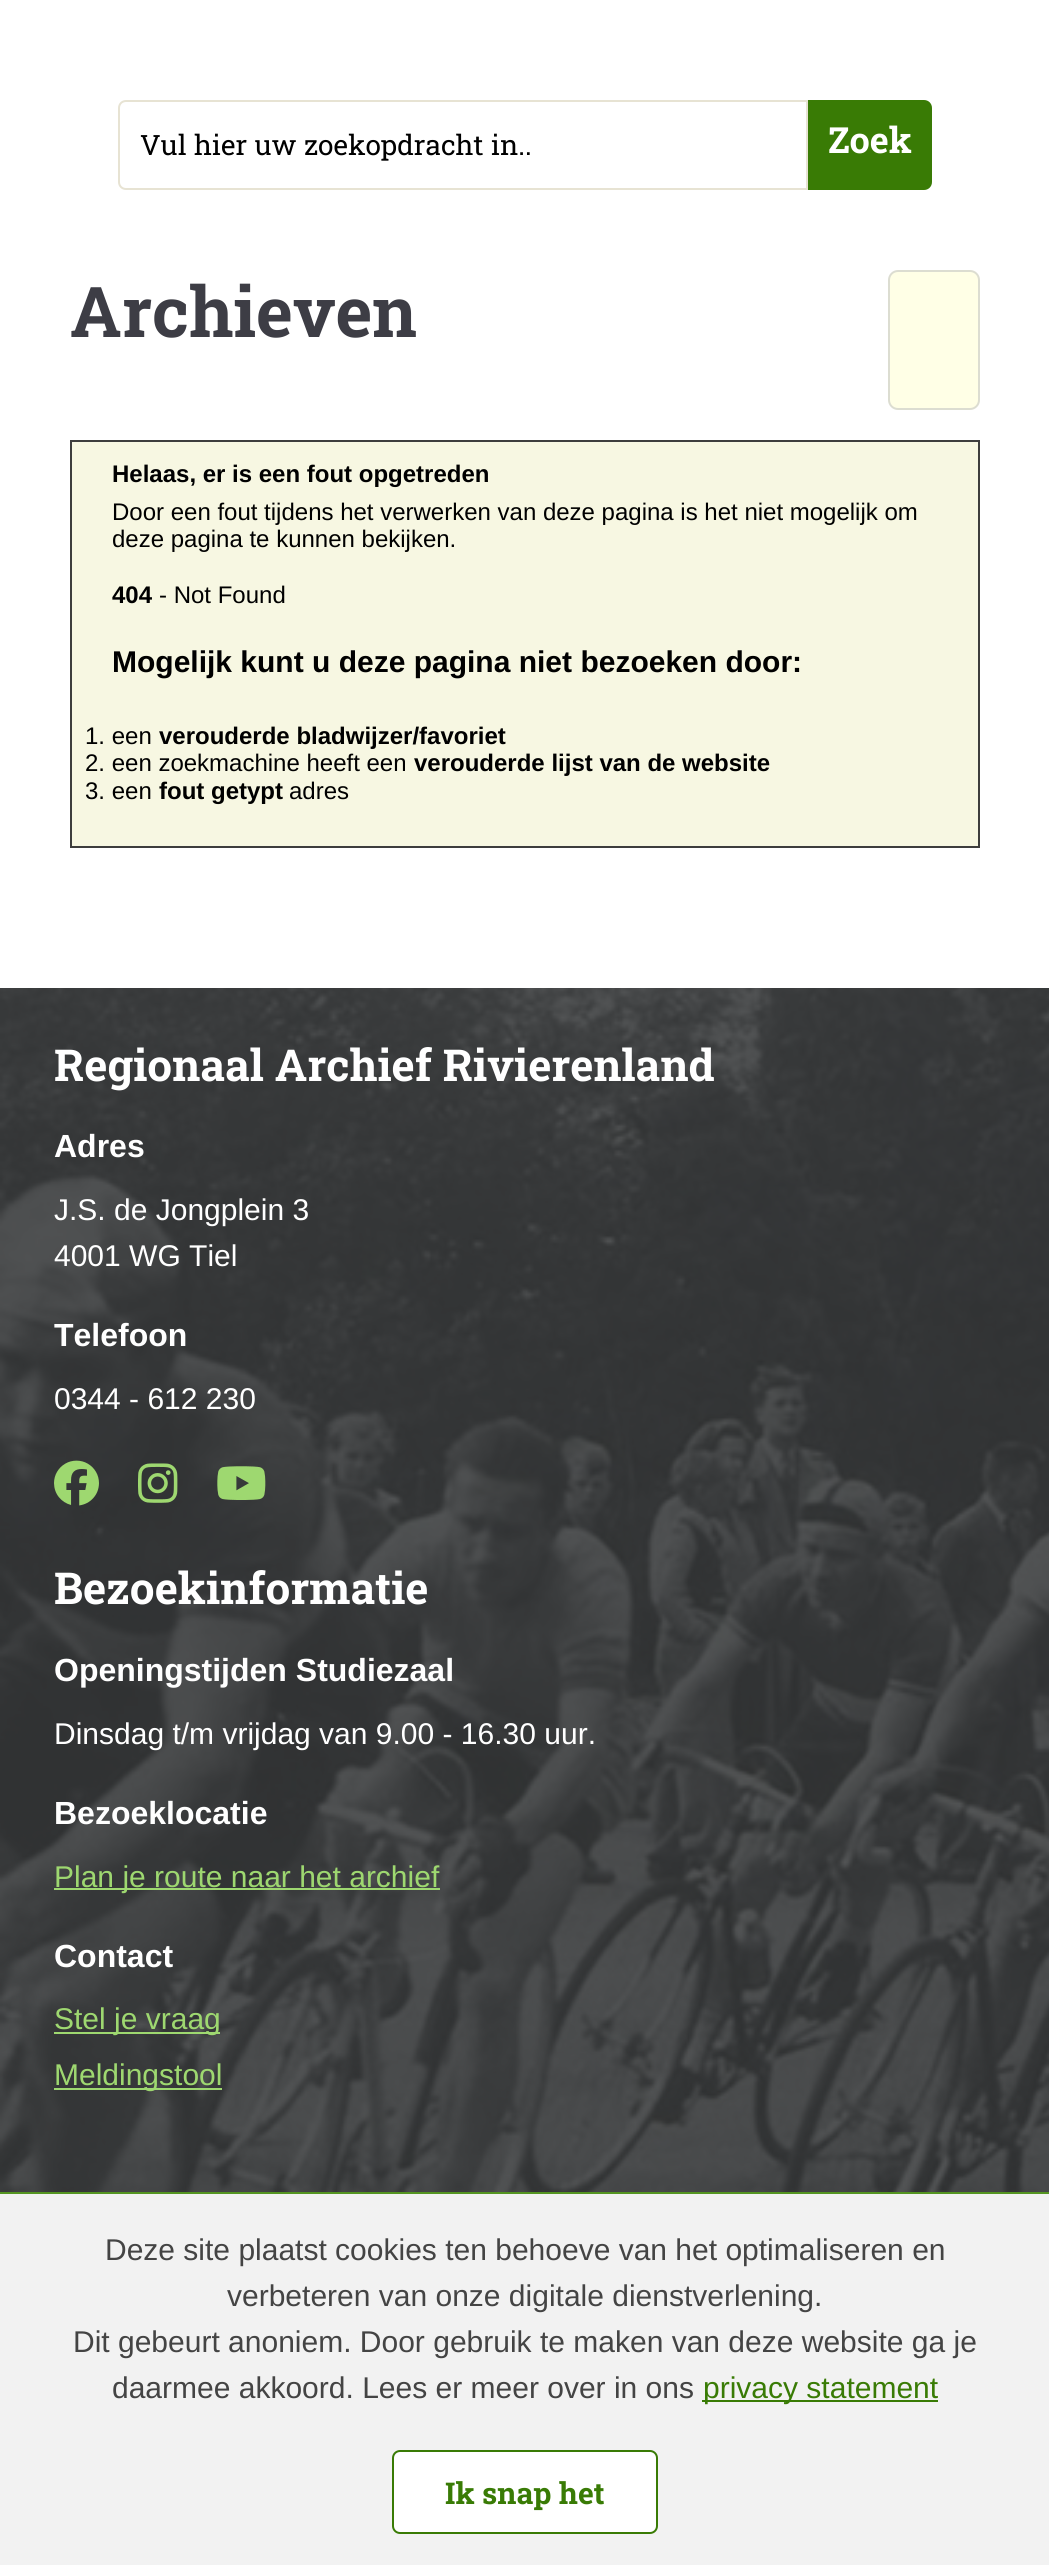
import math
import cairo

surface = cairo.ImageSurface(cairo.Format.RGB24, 1049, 2565)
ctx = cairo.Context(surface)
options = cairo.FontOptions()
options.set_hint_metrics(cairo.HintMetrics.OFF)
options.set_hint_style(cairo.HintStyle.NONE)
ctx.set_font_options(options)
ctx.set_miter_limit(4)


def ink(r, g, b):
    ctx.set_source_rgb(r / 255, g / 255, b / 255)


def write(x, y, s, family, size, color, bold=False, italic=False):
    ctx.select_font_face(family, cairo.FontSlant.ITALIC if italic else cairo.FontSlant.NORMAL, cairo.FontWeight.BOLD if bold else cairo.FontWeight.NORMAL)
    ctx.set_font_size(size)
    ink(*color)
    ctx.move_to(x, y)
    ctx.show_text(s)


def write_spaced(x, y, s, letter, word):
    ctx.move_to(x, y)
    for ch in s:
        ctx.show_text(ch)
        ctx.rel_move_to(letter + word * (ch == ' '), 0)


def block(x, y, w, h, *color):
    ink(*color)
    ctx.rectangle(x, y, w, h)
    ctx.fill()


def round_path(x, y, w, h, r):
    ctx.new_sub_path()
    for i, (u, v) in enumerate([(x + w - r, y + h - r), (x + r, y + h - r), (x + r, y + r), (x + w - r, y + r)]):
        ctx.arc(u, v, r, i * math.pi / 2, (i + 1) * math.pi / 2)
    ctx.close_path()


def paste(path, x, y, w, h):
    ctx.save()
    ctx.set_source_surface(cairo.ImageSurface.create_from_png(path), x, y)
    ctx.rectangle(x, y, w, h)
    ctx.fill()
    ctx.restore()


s1 = dict(family="Roboto Slab", size=36, color=(255, 255, 255), bold=True)
s2 = dict(family="Roboto Slab", size=70, color=(61, 61, 69), bold=True)
s3 = dict(family="Liberation Sans", size=24, color=(0, 0, 0), bold=True)
s4 = dict(family="Liberation Sans", size=24, color=(0, 0, 0))
s5 = dict(family="Liberation Sans", size=30, color=(0, 0, 0), bold=True)
s6 = dict(family="Roboto Slab", size=44, color=(255, 255, 255), bold=True)
s7 = dict(family="Liberation Sans", size=32, color=(255, 255, 255), bold=True)
s8 = dict(family="Liberation Sans", size=30, color=(255, 255, 255))
s9 = dict(family="Liberation Sans", size=30, color=(158, 216, 112))
s10 = dict(family="Liberation Sans", size=30, color=(68, 68, 68))
s11 = dict(family="Liberation Sans", size=30, color=(57, 123, 5))
s12 = dict(family="Roboto Slab", size=30, color=(57, 123, 5), bold=True)

ink(255, 255, 255)
ctx.paint()
ctx.new_path()
ctx.move_to(126, 101)
ctx.line_to(807, 101)
ctx.line_to(807, 189)
ctx.line_to(126, 189)
ctx.curve_to(122, 189, 119, 186, 119, 182)
ctx.line_to(119, 108)
ctx.curve_to(119, 104, 122, 101, 126, 101)
ctx.close_path()
ink(231, 227, 211)
ctx.stroke()
ctx.select_font_face("Roboto Slab")
ctx.set_font_size(28)
ink(0, 0, 0)
write_spaced(140, 155, "Vul hier uw zoekopdracht in..", 0, 0.5)
ink(57, 123, 5)
ctx.new_path()
ctx.move_to(808, 100)
ctx.line_to(924, 100)
ctx.curve_to(928.5, 100, 932, 103.5, 932, 108)
ctx.line_to(932, 182)
ctx.curve_to(932, 186.5, 928.5, 190, 924, 190)
ctx.line_to(808, 190)
ctx.close_path()
ctx.fill()
write(828, 153, "Zoek", **s1)
write(70, 337, "Archieven", **s2)
ink(255, 255, 230)
round_path(889, 271, 90, 138, 9)
ctx.fill_preserve()
ink(220, 221, 209)
ctx.stroke()
ink(247, 247, 226)
ctx.rectangle(71, 441, 908, 406)
ctx.fill_preserve()
ink(61, 61, 61)
ctx.stroke()
write(112, 482, "Helaas, er is een fout opgetreden", **s3)
write(112, 520, "Door een fout tijdens het verwerken van deze pagina is het niet mogelijk om", **s4)
write(112, 547, "deze pagina te kunnen bekijken.", **s4)
write(112, 603, "404", **s3)
write(159, 603, "- Not Found", **s4)
write(112, 672, "Mogelijk kunt u deze pagina niet bezoeken door:", **s5)
write(85, 744, "1. een", **s4)
write(159, 744, "verouderde bladwijzer/favoriet", **s3)
write(85, 771, "2. een zoekmachine heeft een", **s4)
write(414, 771, "verouderde lijst van de website", **s3)
write(85, 799, "3. een", **s4)
write(159, 799, "fout getypt", **s3)
write(289, 799, "adres", **s4)
paste("pic1.png", 0, 988, 1049, 1204)
write(54, 1081, "Regionaal Archief Rivierenland", **s6)
write(54, 1157, "Adres", **s7)
write(54, 1220, "J.S. de Jongplein 3", **s8)
write(54, 1266, "4001 WG Tiel", **s8)
write(54, 1346, "Telefoon", **s7)
write(54, 1409, "0344 - 612 230", **s8)
paste("pic2.png", 54, 1460, 45, 46)
paste("pic3.png", 138, 1463, 40, 40)
paste("pic4.png", 217, 1466, 49, 34)
write(54, 1604, "Bezoekinformatie", **s6)
write(54, 1681, "Openingstijden Studiezaal", **s7)
write(54, 1744, "Dinsdag t/m vrijdag van 9.00 - 16.30 uur.", **s8)
write(54, 1824, "Bezoeklocatie", **s7)
block(54, 1888, 386, 2, 158, 216, 112)
write(54, 1887, "Plan je route naar het archief", **s9)
write(54, 1967, "Contact", **s7)
block(54, 2032, 166, 2, 158, 216, 112)
write(54, 2029, "Stel je vraag", **s9)
block(54, 2088, 168, 2, 158, 216, 112)
write(54, 2085, "Meldingstool", **s9)
block(0, 2194, 1049, 371, 242, 242, 242)
block(0, 2192, 1049, 2, 84, 149, 33)
write(105, 2260, "Deze site plaatst cookies ten behoeve van het optimaliseren en", **s10)
write(227, 2306, "verbeteren van onze digitale dienstverlening.", **s10)
write(73, 2352, "Dit gebeurt anoniem. Door gebruik te maken van deze website ga je", **s10)
write(112, 2398, "daarmee akkoord. Lees er meer over in ons", **s10)
block(702, 2400, 236, 2, 57, 123, 5)
write(703, 2398, "privacy statement", **s11)
ink(255, 255, 255)
round_path(393, 2451, 264, 82, 7)
ctx.fill_preserve()
ink(57, 123, 5)
ctx.stroke()
write(445, 2504, "Ik snap het", **s12)
surface.write_to_png("screenshot.png")
